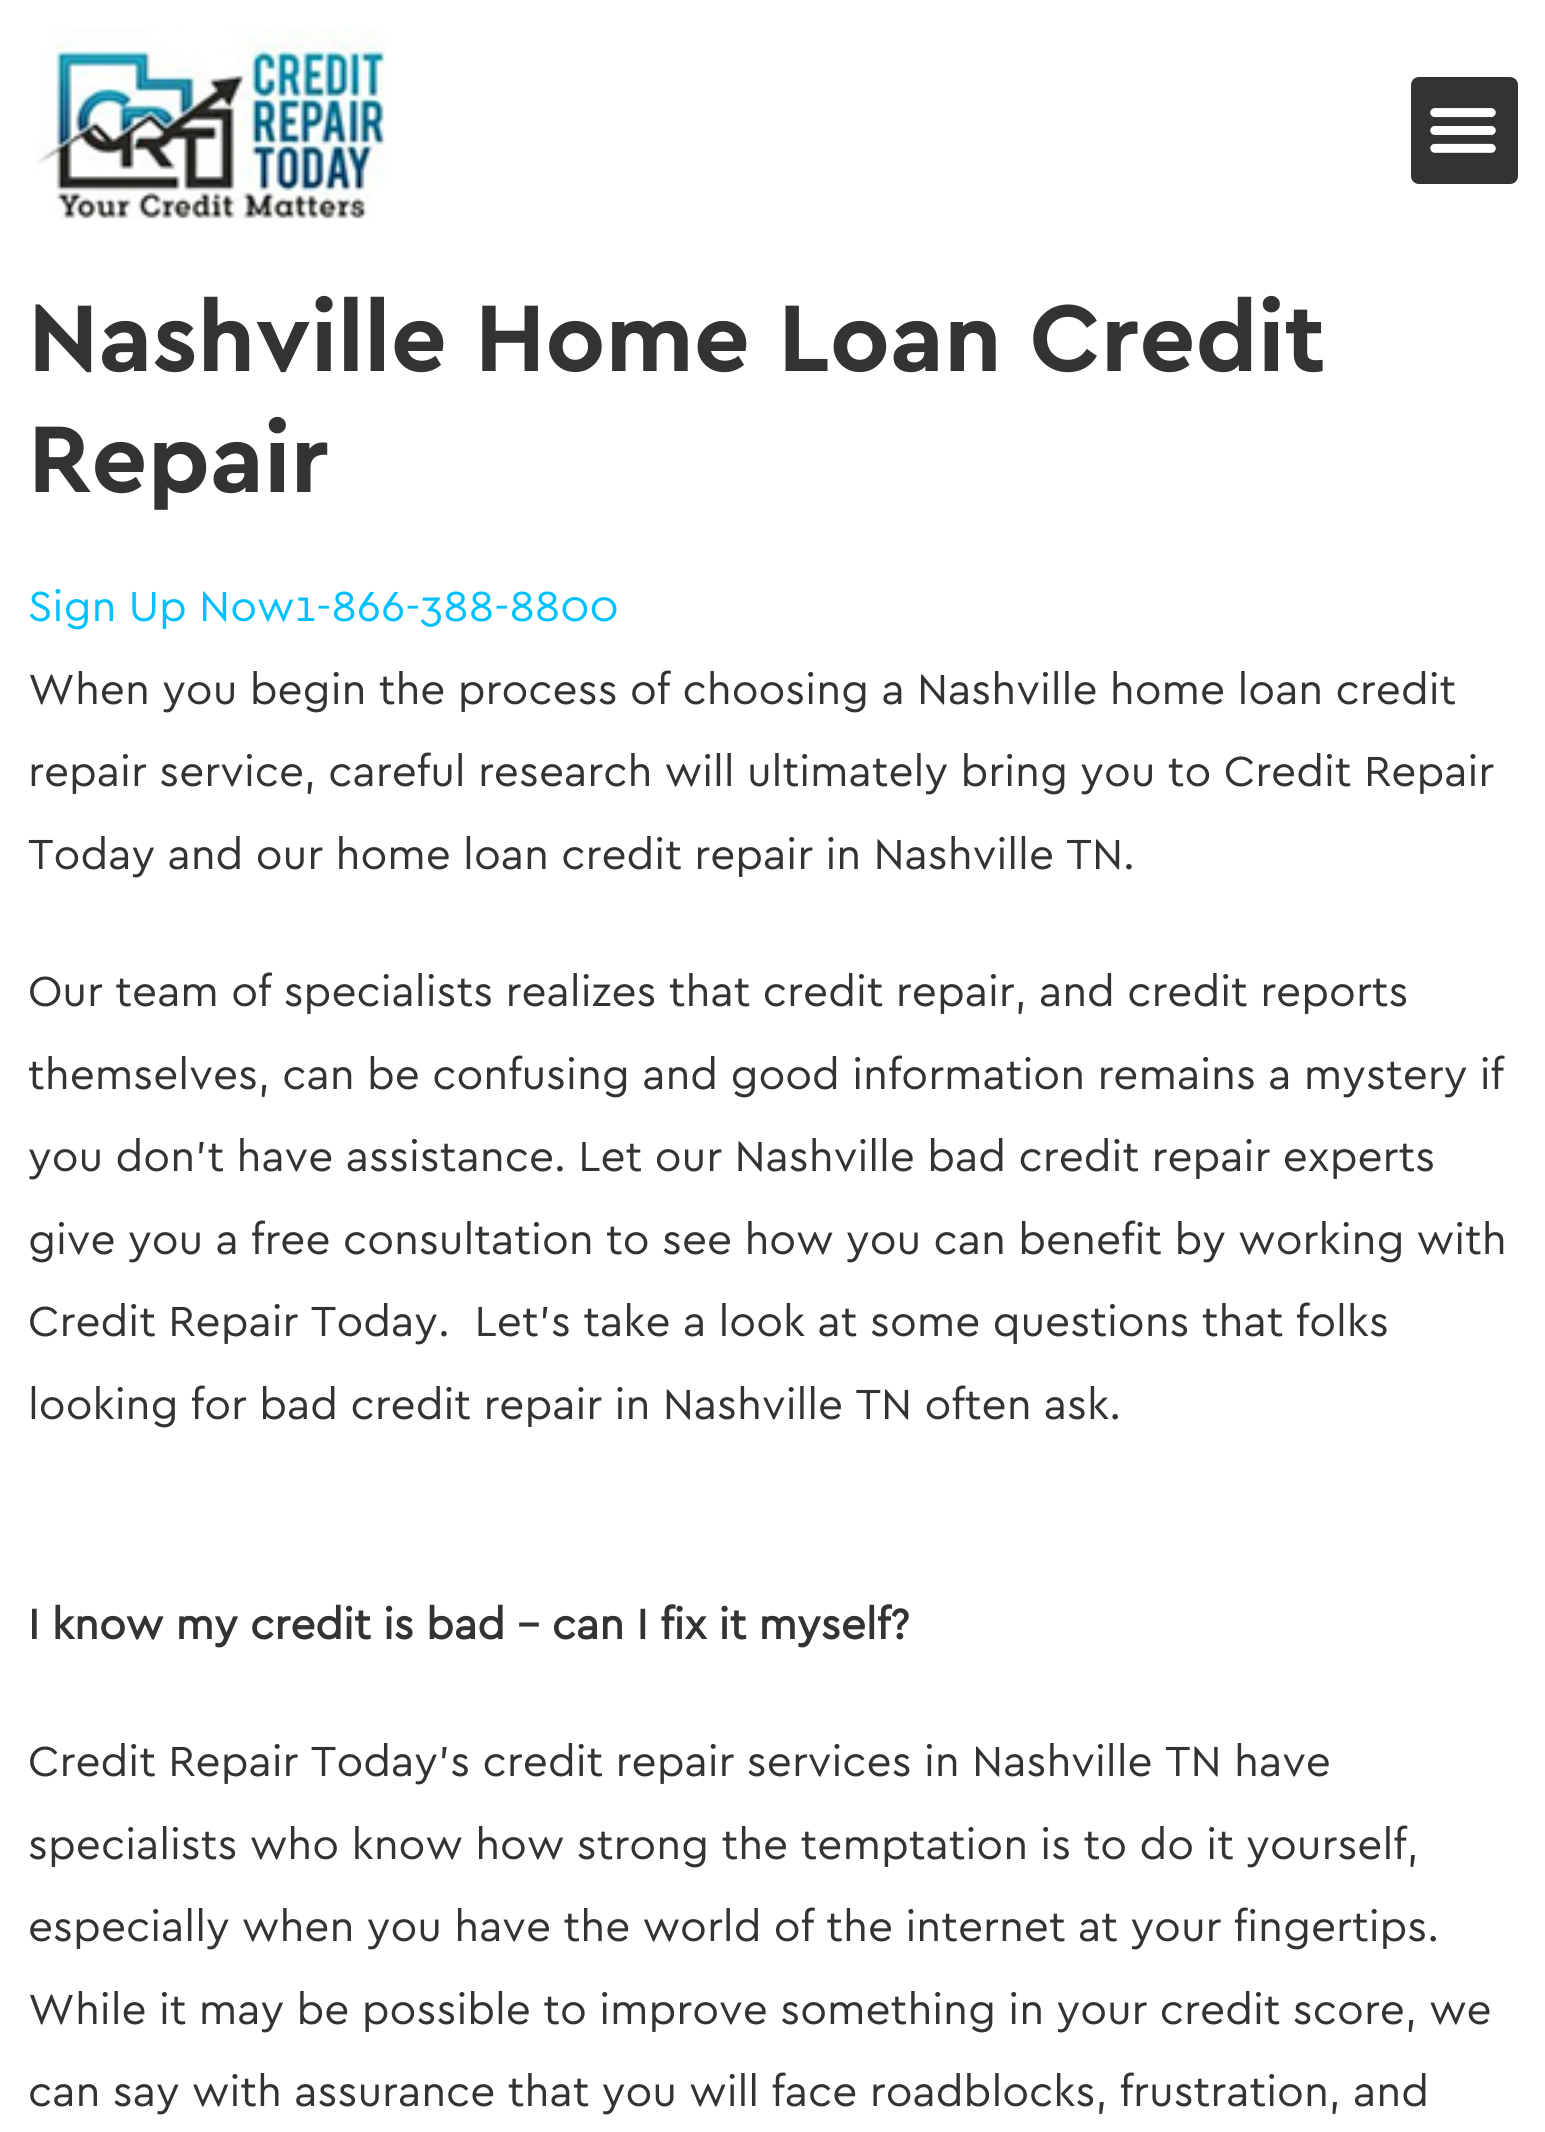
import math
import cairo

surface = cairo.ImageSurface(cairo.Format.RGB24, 1545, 2132)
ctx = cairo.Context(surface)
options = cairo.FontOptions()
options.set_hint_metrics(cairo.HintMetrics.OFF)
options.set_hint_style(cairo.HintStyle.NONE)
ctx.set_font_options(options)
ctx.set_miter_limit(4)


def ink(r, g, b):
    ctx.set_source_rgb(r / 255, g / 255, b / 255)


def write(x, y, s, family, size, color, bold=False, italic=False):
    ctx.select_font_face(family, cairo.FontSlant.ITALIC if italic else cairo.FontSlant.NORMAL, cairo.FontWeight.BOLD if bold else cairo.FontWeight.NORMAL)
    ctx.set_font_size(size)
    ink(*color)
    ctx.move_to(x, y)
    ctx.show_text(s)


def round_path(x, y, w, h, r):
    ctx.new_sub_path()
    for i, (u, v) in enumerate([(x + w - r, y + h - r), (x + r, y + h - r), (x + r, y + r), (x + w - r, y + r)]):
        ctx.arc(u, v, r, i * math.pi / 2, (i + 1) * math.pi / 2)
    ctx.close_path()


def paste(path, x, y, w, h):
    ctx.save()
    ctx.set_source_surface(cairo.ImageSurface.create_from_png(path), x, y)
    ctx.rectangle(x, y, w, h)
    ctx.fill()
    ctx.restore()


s1 = dict(family="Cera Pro", size=99, color=(51, 51, 51), bold=True)
s2 = dict(family="Cera Pro", size=44, color=(0, 193, 253))
s3 = dict(family="Cera Pro", size=44, color=(51, 51, 51))
s4 = dict(family="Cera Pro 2", size=44, color=(51, 51, 51), bold=True)

ink(255, 255, 255)
ctx.paint()
paste("pic1.png", 36, 27, 350, 193)
ink(51, 51, 51)
round_path(1411, 77, 107, 107, 8)
ctx.fill()
paste("pic2.png", 1430, 108, 66, 45)
write(28, 371, "Nashville Home Loan Credit", **s1)
write(28, 492, "Repair", **s1)
write(28, 621, "Sign Up Now1-866-388-8800", **s2)
write(28, 704, "When you begin the process of choosing a Nashville home loan credit", **s3)
write(28, 786, "repair service, careful research will ultimately bring you to Credit Repair", **s3)
write(28, 869, "Today and our home loan credit repair in Nashville TN.", **s3)
write(28, 1006, "Our team of specialists realizes that credit repair, and credit reports", **s3)
write(28, 1089, "themselves, can be confusing and good information remains a mystery if", **s3)
write(28, 1171, "you don’t have assistance. Let our Nashville bad credit repair experts", **s3)
write(28, 1254, "give you a free consultation to see how you can benefit by working with", **s3)
write(28, 1336, "Credit Repair Today.  Let’s take a look at some questions that folks", **s3)
write(28, 1419, "looking for bad credit repair in Nashville TN often ask.", **s3)
write(28, 1639, "I know my credit is bad – can I fix it myself?", **s4)
write(28, 1776, "Credit Repair Today’s credit repair services in Nashville TN have", **s3)
write(28, 1859, "specialists who know how strong the temptation is to do it yourself,", **s3)
write(28, 1941, "especially when you have the world of the internet at your fingertips.", **s3)
write(28, 2024, "While it may be possible to improve something in your credit score, we", **s3)
write(28, 2106, "can say with assurance that you will face roadblocks, frustration, and", **s3)
surface.write_to_png("screenshot.png")
